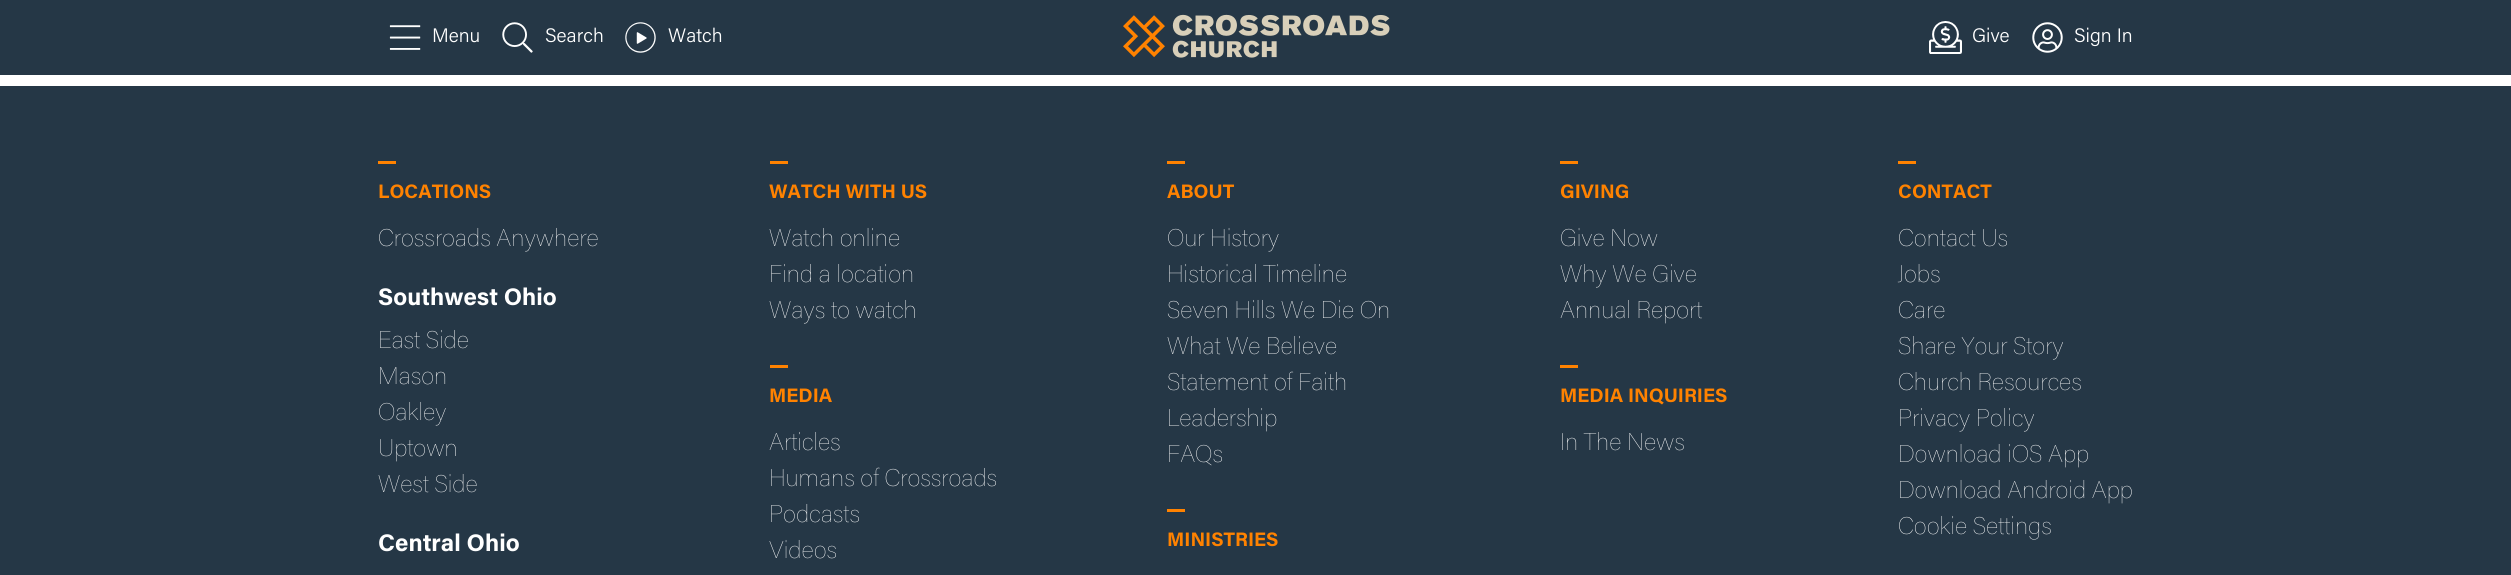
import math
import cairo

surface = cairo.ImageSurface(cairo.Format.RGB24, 2511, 575)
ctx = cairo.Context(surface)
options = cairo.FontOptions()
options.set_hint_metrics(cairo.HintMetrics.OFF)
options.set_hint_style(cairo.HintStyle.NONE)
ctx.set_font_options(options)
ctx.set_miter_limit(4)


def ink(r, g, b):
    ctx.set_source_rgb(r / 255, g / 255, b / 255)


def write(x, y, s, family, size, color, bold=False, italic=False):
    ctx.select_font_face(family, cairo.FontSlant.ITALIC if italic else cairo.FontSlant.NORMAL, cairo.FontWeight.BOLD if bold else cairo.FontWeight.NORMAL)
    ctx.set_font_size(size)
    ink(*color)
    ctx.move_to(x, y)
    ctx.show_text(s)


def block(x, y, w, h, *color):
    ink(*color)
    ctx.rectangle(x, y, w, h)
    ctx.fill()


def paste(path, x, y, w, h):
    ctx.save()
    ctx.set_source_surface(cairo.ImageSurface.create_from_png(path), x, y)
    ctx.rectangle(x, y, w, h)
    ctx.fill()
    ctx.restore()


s1 = dict(family="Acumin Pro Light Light", size=19.5, color=(255, 255, 255))
s2 = dict(family="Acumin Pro", size=19.5, color=(255, 130, 0), bold=True)
s3 = dict(family="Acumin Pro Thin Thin", size=24, color=(255, 255, 255))
s4 = dict(family="Acumin Pro", size=24, color=(255, 255, 255), bold=True)

ink(255, 255, 255)
ctx.paint()
block(0, 0, 2511, 75, 37, 55, 70)
paste("pic1.png", 1123, 14, 267, 44)
paste("pic2.png", 389, 25, 32, 25)
write(432, 42, "Menu", **s1)
paste("pic3.png", 502, 22, 31, 31)
write(545, 42, "Search", **s1)
paste("pic4.png", 625, 22, 31, 31)
write(668, 42, "Watch", **s1)
paste("pic5.png", 1929, 21, 33, 33)
write(1972, 42, "Give", **s1)
paste("pic6.png", 2032, 22, 31, 31)
write(2074, 42, "Sign In", **s1)
block(0, 86, 2511, 489, 37, 55, 70)
block(378, 161, 18, 3, 255, 130, 0)
write(378, 198, "LOCATIONS", **s2)
write(378, 246, "Crossroads Anywhere", **s3)
write(378, 305, "Southwest Ohio", **s4)
write(378, 348, "East Side", **s3)
write(378, 384, "Mason", **s3)
write(378, 420, "Oakley", **s3)
write(378, 456, "Uptown", **s3)
write(378, 492, "West Side", **s3)
write(378, 551, "Central Ohio", **s4)
block(770, 161, 18, 3, 255, 130, 0)
write(769, 198, "WATCH WITH US", **s2)
write(769, 246, "Watch online", **s3)
write(769, 282, "Find a location", **s3)
write(769, 318, "Ways to watch", **s3)
block(770, 365, 18, 3, 255, 130, 0)
write(769, 402, "MEDIA", **s2)
write(769, 450, "Articles", **s3)
write(769, 486, "Humans of Crossroads", **s3)
write(769, 522, "Podcasts", **s3)
write(769, 558, "Videos", **s3)
block(1167, 161, 18, 3, 255, 130, 0)
write(1167, 198, "ABOUT", **s2)
write(1167, 246, "Our History", **s3)
write(1167, 282, "Historical Timeline", **s3)
write(1167, 318, "Seven Hills We Die On", **s3)
write(1167, 354, "What We Believe", **s3)
write(1167, 390, "Statement of Faith", **s3)
write(1167, 426, "Leadership", **s3)
write(1167, 462, "FAQs", **s3)
block(1167, 509, 18, 3, 255, 130, 0)
write(1167, 546, "MINISTRIES", **s2)
block(1560, 161, 18, 3, 255, 130, 0)
write(1560, 198, "GIVING", **s2)
write(1560, 246, "Give Now", **s3)
write(1560, 282, "Why We Give", **s3)
write(1560, 318, "Annual Report", **s3)
block(1560, 365, 18, 3, 255, 130, 0)
write(1560, 402, "MEDIA INQUIRIES", **s2)
write(1560, 450, "In The News", **s3)
block(1898, 161, 18, 3, 255, 130, 0)
write(1898, 198, "CONTACT", **s2)
write(1898, 246, "Contact Us", **s3)
write(1898, 282, "Jobs", **s3)
write(1898, 318, "Care", **s3)
write(1898, 354, "Share Your Story", **s3)
write(1898, 390, "Church Resources", **s3)
write(1898, 426, "Privacy Policy", **s3)
write(1898, 462, "Download iOS App", **s3)
write(1898, 498, "Download Android App", **s3)
write(1898, 534, "Cookie Settings", **s3)
surface.write_to_png("screenshot.png")
